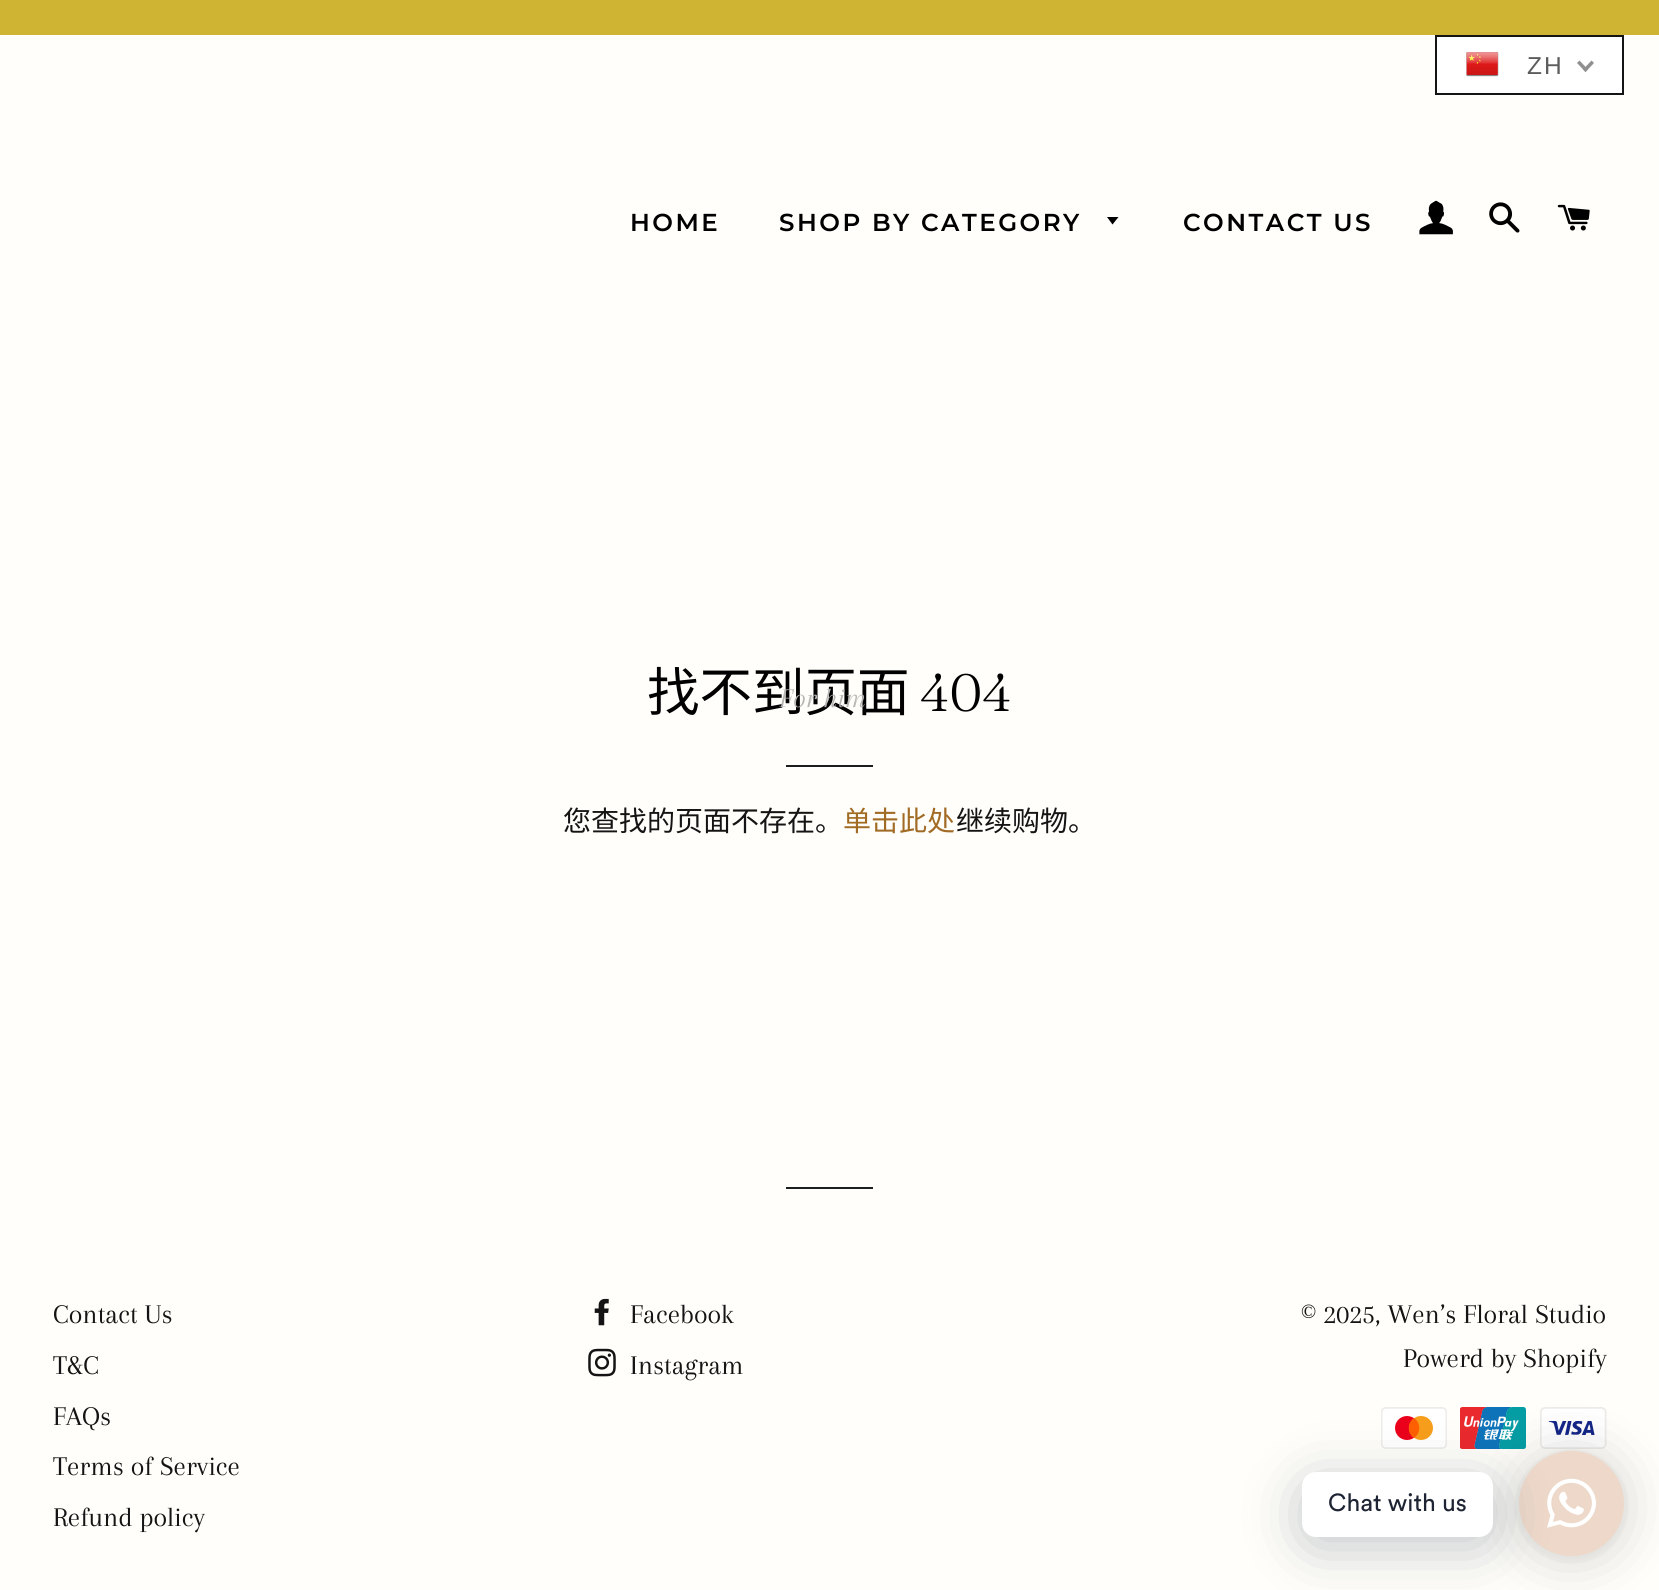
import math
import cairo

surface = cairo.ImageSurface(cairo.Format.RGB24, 1659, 1590)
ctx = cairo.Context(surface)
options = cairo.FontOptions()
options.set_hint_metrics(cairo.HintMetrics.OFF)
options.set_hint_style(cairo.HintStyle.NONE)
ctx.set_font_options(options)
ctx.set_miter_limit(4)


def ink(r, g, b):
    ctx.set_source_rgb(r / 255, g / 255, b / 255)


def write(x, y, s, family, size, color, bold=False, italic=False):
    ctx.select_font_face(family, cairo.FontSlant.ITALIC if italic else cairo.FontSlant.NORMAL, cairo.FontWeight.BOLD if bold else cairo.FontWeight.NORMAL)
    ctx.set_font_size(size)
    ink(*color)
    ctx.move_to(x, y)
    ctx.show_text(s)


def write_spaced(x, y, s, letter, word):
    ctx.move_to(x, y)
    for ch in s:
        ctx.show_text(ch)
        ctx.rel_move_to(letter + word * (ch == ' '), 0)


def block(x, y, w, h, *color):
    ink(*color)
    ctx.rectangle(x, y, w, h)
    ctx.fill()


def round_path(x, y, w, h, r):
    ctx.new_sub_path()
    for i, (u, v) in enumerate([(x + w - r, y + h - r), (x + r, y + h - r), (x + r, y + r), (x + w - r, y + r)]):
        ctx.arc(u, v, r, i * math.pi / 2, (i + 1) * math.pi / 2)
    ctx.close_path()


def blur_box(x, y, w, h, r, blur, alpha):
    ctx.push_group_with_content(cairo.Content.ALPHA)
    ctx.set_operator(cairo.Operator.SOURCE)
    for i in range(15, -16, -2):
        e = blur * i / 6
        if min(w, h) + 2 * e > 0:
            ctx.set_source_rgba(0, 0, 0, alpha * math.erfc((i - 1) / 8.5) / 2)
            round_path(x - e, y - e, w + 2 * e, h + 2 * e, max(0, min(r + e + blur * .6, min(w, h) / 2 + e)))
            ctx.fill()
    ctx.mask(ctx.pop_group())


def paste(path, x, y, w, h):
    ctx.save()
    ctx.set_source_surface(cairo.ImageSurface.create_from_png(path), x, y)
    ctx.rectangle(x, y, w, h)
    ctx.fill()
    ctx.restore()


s1 = dict(family="Noto Sans CJK SC", size=52.5, color=(0, 0, 0))
s2 = dict(family="Arapey", size=28, color=(182, 181, 179), italic=True)
s3 = dict(family="Fraunces Light", size=52.5, color=(0, 0, 0))
s4 = dict(family="Noto Sans CJK SC", size=28, color=(20, 20, 20))
s5 = dict(family="Noto Sans CJK SC", size=28, color=(162, 107, 37))
s6 = dict(family="Arapey", size=28, color=(20, 20, 20))
s7 = dict(family="Circular", size=24.5, color=(30, 36, 51))

ink(255, 254, 250)
ctx.paint()
ink(255, 255, 255)
ctx.rectangle(1436, 36, 187, 58)
ctx.fill_preserve()
ink(20, 20, 20)
ctx.stroke()
paste("pic1.png", 1466, 52, 33, 25)
ctx.select_font_face("Liberation Sans")
ctx.set_font_size(24.5)
ink(92, 92, 92)
write_spaced(1527, 74, "ZH", 2, 0)
ink(144, 144, 144)
ctx.new_path()
ctx.move_to(1591.5, 60.5)
ctx.line_to(1594, 63)
ctx.line_to(1585.5, 72)
ctx.line_to(1583, 69.5)
ctx.close_path()
ctx.fill()
ctx.new_path()
ctx.move_to(1579.5, 60.5)
ctx.line_to(1588, 69.5)
ctx.line_to(1585.5, 72)
ctx.line_to(1577, 63)
ctx.close_path()
ctx.fill()
block(0, 0, 1659, 35, 207, 179, 51)
ctx.select_font_face("Montserrat SemiBold")
ink(0, 0, 0)
write_spaced(630, 231, "HOME", 2.5, 0)
write_spaced(779, 231, "SHOP BY CATEGORY", 2.5, 0)
ctx.new_path()
ctx.move_to(1107, 217)
ctx.line_to(1112.5, 224.5)
ctx.line_to(1118.5, 217)
ctx.close_path()
ctx.fill()
write(647, 711, "找不到页面", **s1)
write(779, 707, "For him", **s2)
ctx.select_font_face("Montserrat SemiBold")
ctx.set_font_size(24.5)
ink(0, 0, 0)
write_spaced(1183, 231, "CONTACT US", 2.5, 0)
paste("pic2.png", 1419, 200, 34, 35)
paste("pic3.png", 1489, 202, 31, 31)
paste("pic4.png", 1557, 204, 33, 27)
write(920, 711, "404", **s3)
block(786, 765, 87, 2, 28, 29, 29)
write(563, 831, "您查找的页面不存在。", **s4)
write(843, 831, "单击此处", **s5)
write(956, 831, "继续购物。", **s4)
block(786, 1187, 87, 2, 28, 29, 29)
write(53, 1323, "Contact Us", **s6)
write(53, 1374, "T&C", **s6)
write(53, 1425, "FAQs", **s6)
write(53, 1475, "Terms of Service", **s6)
write(53, 1526, "Refund policy", **s6)
paste("pic5.png", 594, 1298, 15, 28)
write(630, 1323, "Facebook", **s6)
paste("pic6.png", 588, 1348, 28, 29)
write(630, 1374, "Instagram", **s6)
write(1301, 1323, "© 2025, Wen’s Floral Studio", **s6)
write(1403, 1367, "Powerd by Shopify", **s6)
paste("pic7.png", 1381, 1407, 66, 42)
paste("pic8.png", 1460, 1407, 66, 42)
paste("pic9.png", 1540, 1407, 67, 42)
ink(0, 0, 0)
blur_box(1519, 1454, 105, 105, 52.5, 28, 0.16)
blur_box(1519, 1453, 105, 105, 52.5, 5, 0.06)
ink(237, 216, 201)
ctx.arc(1571.5, 1503.5, 52.5, 0, 2 * math.pi)
ctx.fill()
ink(0, 18, 46)
blur_box(1302, 1482, 191, 65, 14, 28, 0.24)
ink(255, 255, 255)
round_path(1302, 1472, 191, 65, 14)
ctx.fill()
write(1328, 1511, "Chat with us", **s7)
paste("pic10.png", 1547, 1478, 49, 50)
surface.write_to_png("screenshot.png")
